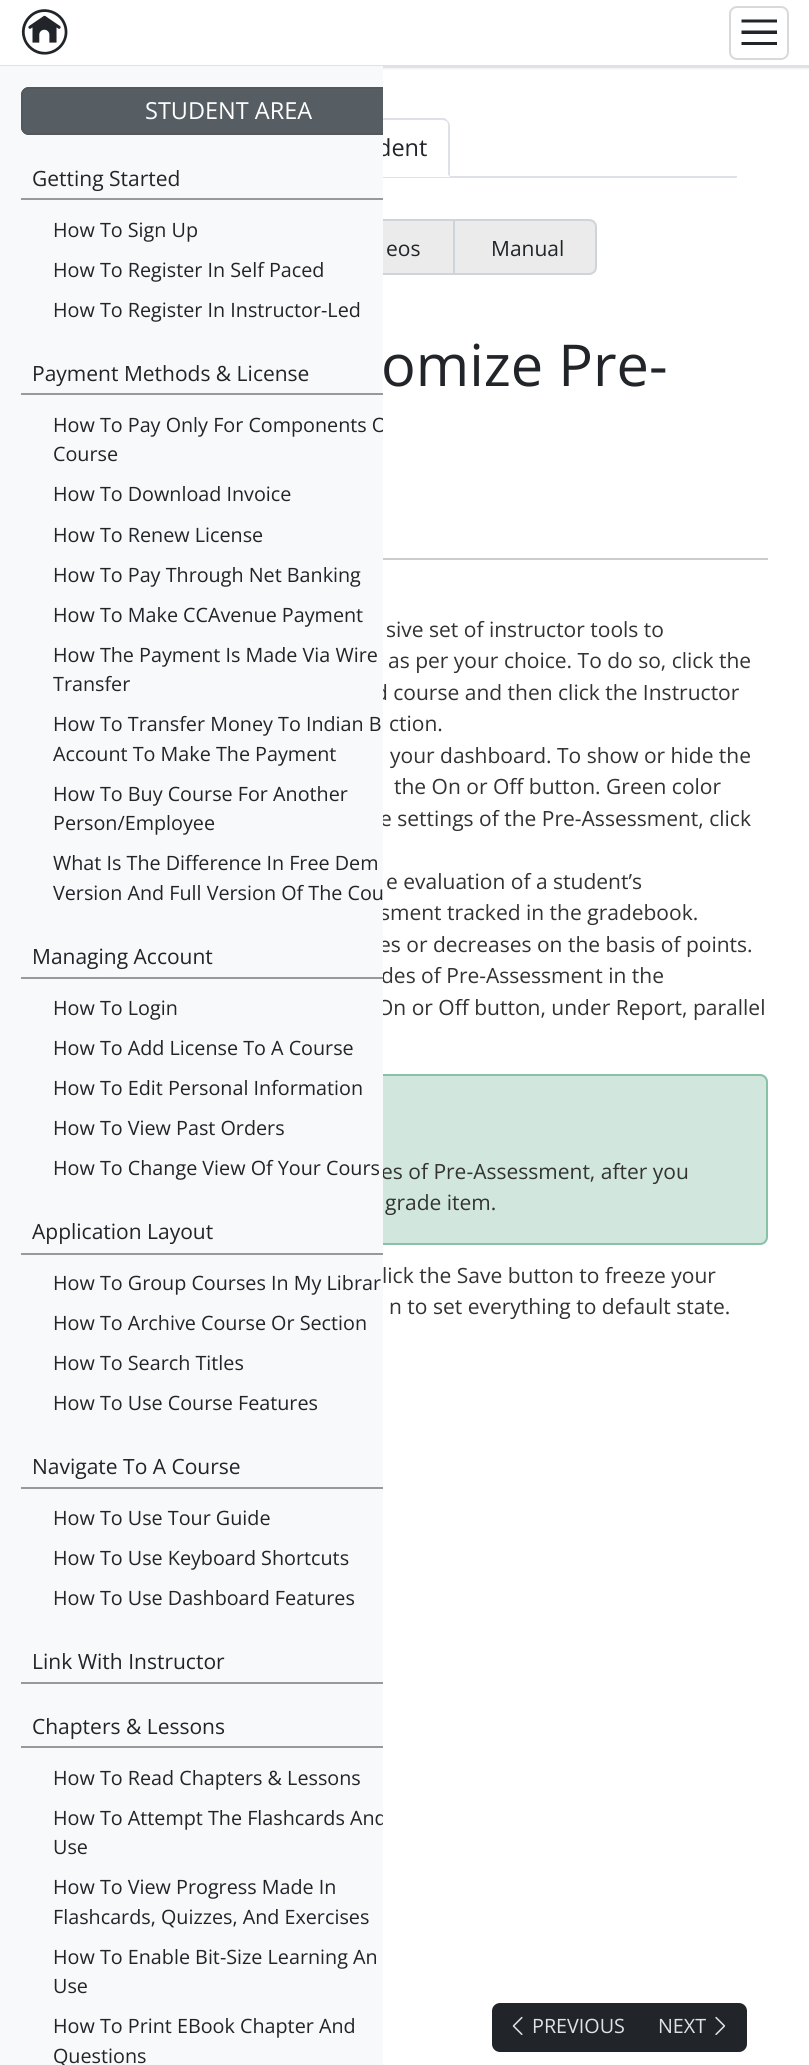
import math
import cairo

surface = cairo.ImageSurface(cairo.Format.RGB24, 809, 2065)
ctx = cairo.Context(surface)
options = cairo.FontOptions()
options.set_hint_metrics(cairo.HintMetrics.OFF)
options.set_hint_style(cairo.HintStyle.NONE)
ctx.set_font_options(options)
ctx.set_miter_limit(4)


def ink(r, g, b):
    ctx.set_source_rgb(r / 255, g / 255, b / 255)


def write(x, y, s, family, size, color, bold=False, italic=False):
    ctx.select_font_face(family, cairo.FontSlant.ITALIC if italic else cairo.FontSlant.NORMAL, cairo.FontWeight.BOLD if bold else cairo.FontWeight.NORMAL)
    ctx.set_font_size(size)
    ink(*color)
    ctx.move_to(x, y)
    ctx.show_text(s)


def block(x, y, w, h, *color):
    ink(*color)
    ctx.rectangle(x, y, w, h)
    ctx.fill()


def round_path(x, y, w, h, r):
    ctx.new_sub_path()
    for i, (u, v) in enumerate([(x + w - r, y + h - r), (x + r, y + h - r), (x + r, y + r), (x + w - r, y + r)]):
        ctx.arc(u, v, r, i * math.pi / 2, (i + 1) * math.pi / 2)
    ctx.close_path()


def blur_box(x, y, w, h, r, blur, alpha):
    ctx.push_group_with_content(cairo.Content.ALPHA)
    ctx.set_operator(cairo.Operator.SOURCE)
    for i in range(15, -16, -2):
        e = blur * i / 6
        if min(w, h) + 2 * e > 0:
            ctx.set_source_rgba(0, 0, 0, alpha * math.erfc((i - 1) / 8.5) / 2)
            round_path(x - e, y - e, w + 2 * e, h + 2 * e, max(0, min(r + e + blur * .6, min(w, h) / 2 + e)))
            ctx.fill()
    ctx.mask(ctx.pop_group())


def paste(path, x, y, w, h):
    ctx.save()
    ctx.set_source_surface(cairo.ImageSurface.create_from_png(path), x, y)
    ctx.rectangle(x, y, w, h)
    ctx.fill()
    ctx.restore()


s1 = dict(family="Open Sans", size=23.5, color=(33, 37, 41))
s2 = dict(family="Open Sans", size=21, color=(51, 51, 51))
s3 = dict(family="Open Sans", size=23.5, color=(255, 255, 255))
s4 = dict(family="Open Sans", size=21, color=(33, 37, 41))
s5 = dict(family="Open Sans", size=19.75, color=(33, 37, 41))
s6 = dict(family="Open Sans", size=57.75, color=(33, 37, 41))
s7 = dict(family="Open Sans", size=19.75, color=(222, 226, 230))

ink(255, 255, 255)
ctx.paint()
ctx.save()
ctx.rectangle(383, 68, 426, 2)
ctx.clip()
ink(0, 0, 0)
blur_box(0, 3, 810, 66, 0, 2.5, 0.07)
ctx.restore()
block(0, 65, 809, 1, 222, 226, 230)
paste("pic1.png", 21, 9, 47, 46)
round_path(730, 7, 58, 52, 7)
ink(217, 217, 217)
ctx.stroke()
ink(33, 37, 41)
ctx.new_path()
ctx.move_to(741.5, 45)
ctx.line_to(777, 45)
ctx.line_to(777, 42)
ctx.line_to(741.5, 42)
ctx.close_path()
ctx.move_to(741.5, 34)
ctx.line_to(777, 34)
ctx.line_to(777, 30.5)
ctx.line_to(741.5, 30.5)
ctx.close_path()
ctx.move_to(741.5, 22.5)
ctx.line_to(777, 22.5)
ctx.line_to(777, 19.5)
ctx.line_to(741.5, 19.5)
ctx.close_path()
ctx.fill()
block(383, 66, 426, 2, 222, 226, 230)
block(383, 176, 354, 2, 222, 226, 230)
ink(255, 255, 255)
ctx.new_path()
ctx.move_to(322, 119)
ctx.line_to(442, 119)
ctx.curve_to(446.5, 119, 450, 122.5, 450, 127)
ctx.line_to(450, 177)
ctx.line_to(314, 177)
ctx.line_to(314, 127)
ctx.curve_to(314, 122.5, 317.5, 119, 322, 119)
ctx.close_path()
ctx.fill()
ink(222, 226, 230)
ctx.new_path()
ctx.move_to(321, 120)
ctx.curve_to(320, 120, 318, 121, 317, 122)
ctx.line_to(316, 121)
ctx.line_to(319, 118)
ctx.line_to(445, 118)
ctx.line_to(448, 121)
ctx.line_to(447, 122)
ctx.curve_to(446, 121, 444, 120, 442, 120)
ctx.close_path()
ctx.fill()
ctx.new_path()
ctx.move_to(450, 177)
ctx.line_to(450, 126)
ctx.curve_to(450, 124, 449, 122, 448, 121)
ctx.line_to(447, 122)
ctx.curve_to(448, 123, 448, 125, 448, 126)
ctx.line_to(448, 175)
ctx.close_path()
ctx.fill()
ink(255, 255, 255)
ctx.new_path()
ctx.move_to(450, 177)
ctx.line_to(448, 175)
ctx.line_to(448, 176)
ctx.line_to(315, 176)
ctx.line_to(314, 177)
ctx.close_path()
ctx.fill()
write(377, 156, "dent", **s1)
block(383, 221, 70, 52, 235, 235, 235)
ctx.rectangle(319, 220, 135, 54)
ink(206, 212, 218)
ctx.stroke()
write(375, 700, "d course and then click the Instructor", **s2)
write(380, 826, "e settings of the Pre-Assessment, click", **s2)
write(380, 920, "sment tracked in the gradebook.", **s2)
write(379, 952, "es or decreases on the basis of points.", **s2)
write(381, 983, "des of Pre-Assessment in the", **s2)
write(377, 1015, "On or Off button, under Report, parallel", **s2)
ink(209, 231, 221)
round_path(42, 1074, 726, 171, 8)
ctx.fill()
round_path(43, 1075, 724, 169, 7)
ctx.set_source_rgba(0.098, 0.529, 0.329, 0.4)
ctx.stroke()
write(381, 1179, "es of Pre-Assessment, after you", **s2)
block(0, 66, 383, 1999, 248, 249, 250)
ink(86, 94, 100)
ctx.new_path()
ctx.move_to(29, 87)
ctx.line_to(383, 87)
ctx.line_to(383, 135)
ctx.line_to(29, 135)
ctx.curve_to(24.5, 135, 21, 131.5, 21, 127)
ctx.line_to(21, 95)
ctx.curve_to(21, 90.5, 24.5, 87, 29, 87)
ctx.close_path()
ctx.fill()
ctx.save()
ctx.rectangle(0, 66, 383, 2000)
ctx.clip()
round_path(22, 88, 414, 46, 7)
ink(81, 88, 94)
ctx.stroke()
ctx.restore()
write(145, 119, "STUDENT AREA", **s3)
block(21, 198, 362, 2, 153, 153, 153)
write(32, 186, "Getting Started", **s4)
write(53, 237, "How To Sign Up", **s5)
write(53, 277, "How To Register In Self Paced", **s5)
write(53, 317, "How To Register In Instructor-Led", **s5)
block(21, 393, 362, 2, 153, 153, 153)
write(32, 381, "Payment Methods & License", **s4)
ctx.save()
ctx.rectangle(0, 66, 383, 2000)
ctx.clip()
write(53, 432, "How To Pay Only For Components O", **s5)
ctx.restore()
write(53, 461, "Course", **s5)
write(53, 501, "How To Download Invoice", **s5)
write(53, 542, "How To Renew License", **s5)
write(53, 582, "How To Pay Through Net Banking", **s5)
write(53, 622, "How To Make CCAvenue Payment", **s5)
write(53, 662, "How The Payment Is Made Via Wire", **s5)
write(53, 691, "Transfer", **s5)
write(53, 731, "How To Transfer Money To Indian B", **s5)
write(53, 761, "Account To Make The Payment", **s5)
write(53, 801, "How To Buy Course For Another", **s5)
write(53, 830, "Person/Employee", **s5)
write(53, 870, "What Is The Difference In Free Dem", **s5)
write(53, 900, "Version And Full Version Of The Cou", **s5)
block(21, 977, 362, 2, 153, 153, 153)
write(32, 964, "Managing Account", **s4)
write(53, 1015, "How To Login", **s5)
write(53, 1055, "How To Add License To A Course", **s5)
write(53, 1095, "How To Edit Personal Information", **s5)
write(53, 1135, "How To View Past Orders", **s5)
write(53, 1175, "How To Change View Of Your Cours", **s5)
block(21, 1253, 362, 2, 153, 153, 153)
write(32, 1239, "Application Layout", **s4)
write(53, 1290, "How To Group Courses In My Librar", **s5)
write(53, 1330, "How To Archive Course Or Section", **s5)
write(53, 1370, "How To Search Titles", **s5)
write(53, 1410, "How To Use Course Features", **s5)
block(21, 1487, 362, 2, 153, 153, 153)
write(32, 1474, "Navigate To A Course", **s4)
write(53, 1525, "How To Use Tour Guide", **s5)
write(53, 1565, "How To Use Keyboard Shortcuts", **s5)
write(53, 1605, "How To Use Dashboard Features", **s5)
block(21, 1682, 362, 2, 153, 153, 153)
write(32, 1669, "Link With Instructor", **s4)
block(21, 1746, 362, 2, 153, 153, 153)
write(32, 1734, "Chapters & Lessons", **s4)
write(53, 1785, "How To Read Chapters & Lessons", **s5)
ctx.save()
ctx.rectangle(0, 66, 383, 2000)
ctx.clip()
write(53, 1825, "How To Attempt The Flashcards And", **s5)
ctx.restore()
write(53, 1854, "Use", **s5)
write(53, 1894, "How To View Progress Made In", **s5)
write(53, 1924, "Flashcards, Quizzes, And Exercises", **s5)
write(53, 1964, "How To Enable Bit-Size Learning An", **s5)
write(53, 1993, "Use", **s5)
write(53, 2033, "How To Print EBook Chapter And", **s5)
write(53, 2063, "Questions", **s5)
write(386, 256, "eos", **s4)
ink(235, 235, 235)
ctx.new_path()
ctx.move_to(454, 220)
ctx.line_to(589, 220)
ctx.curve_to(593, 220, 596, 223, 596, 227)
ctx.line_to(596, 267)
ctx.curve_to(596, 271, 593, 274, 589, 274)
ctx.line_to(454, 274)
ctx.close_path()
ctx.fill_preserve()
ink(206, 212, 218)
ctx.stroke()
write(491, 256, "Manual", **s4)
write(381, 386, "omize Pre-", **s6)
block(383, 558, 385, 2, 204, 204, 204)
write(386, 637, "sive set of instructor tools to", **s2)
write(388, 668, "as per your choice. To do so, click the", **s2)
write(389, 731, "ction.", **s2)
write(390, 763, "your dashboard. To show or hide the", **s2)
write(394, 794, "the On or Off button. Green color", **s2)
write(386, 889, "e evaluation of a student’s", **s2)
write(385, 1210, "grade item.", **s2)
write(382, 1283, "lick the Save button to freeze your", **s2)
write(389, 1314, "n to set everything to default state.", **s2)
ink(33, 37, 41)
round_path(492, 2003, 255, 49, 8)
ctx.fill()
paste("pic2.png", 512, 2016, 11, 20)
write(532, 2033, "PREVIOUS", **s7)
write(658, 2033, "NEXT", **s7)
paste("pic3.png", 715, 2016, 11, 19)
surface.write_to_png("screenshot.png")
